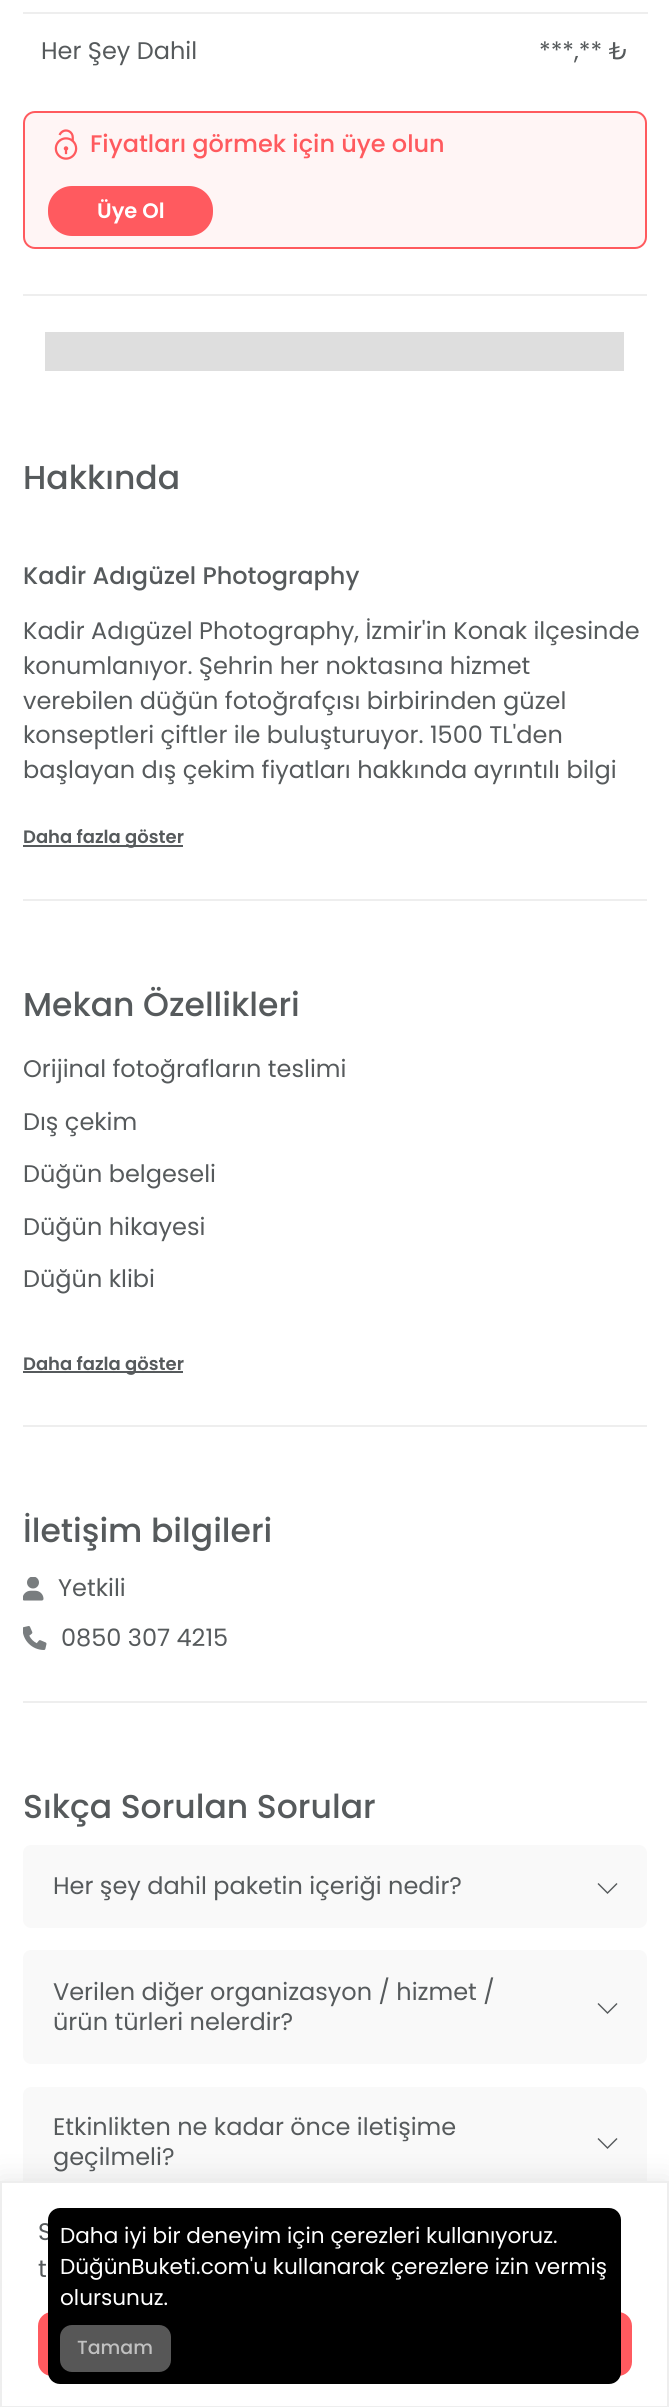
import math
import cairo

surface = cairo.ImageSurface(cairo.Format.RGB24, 669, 2407)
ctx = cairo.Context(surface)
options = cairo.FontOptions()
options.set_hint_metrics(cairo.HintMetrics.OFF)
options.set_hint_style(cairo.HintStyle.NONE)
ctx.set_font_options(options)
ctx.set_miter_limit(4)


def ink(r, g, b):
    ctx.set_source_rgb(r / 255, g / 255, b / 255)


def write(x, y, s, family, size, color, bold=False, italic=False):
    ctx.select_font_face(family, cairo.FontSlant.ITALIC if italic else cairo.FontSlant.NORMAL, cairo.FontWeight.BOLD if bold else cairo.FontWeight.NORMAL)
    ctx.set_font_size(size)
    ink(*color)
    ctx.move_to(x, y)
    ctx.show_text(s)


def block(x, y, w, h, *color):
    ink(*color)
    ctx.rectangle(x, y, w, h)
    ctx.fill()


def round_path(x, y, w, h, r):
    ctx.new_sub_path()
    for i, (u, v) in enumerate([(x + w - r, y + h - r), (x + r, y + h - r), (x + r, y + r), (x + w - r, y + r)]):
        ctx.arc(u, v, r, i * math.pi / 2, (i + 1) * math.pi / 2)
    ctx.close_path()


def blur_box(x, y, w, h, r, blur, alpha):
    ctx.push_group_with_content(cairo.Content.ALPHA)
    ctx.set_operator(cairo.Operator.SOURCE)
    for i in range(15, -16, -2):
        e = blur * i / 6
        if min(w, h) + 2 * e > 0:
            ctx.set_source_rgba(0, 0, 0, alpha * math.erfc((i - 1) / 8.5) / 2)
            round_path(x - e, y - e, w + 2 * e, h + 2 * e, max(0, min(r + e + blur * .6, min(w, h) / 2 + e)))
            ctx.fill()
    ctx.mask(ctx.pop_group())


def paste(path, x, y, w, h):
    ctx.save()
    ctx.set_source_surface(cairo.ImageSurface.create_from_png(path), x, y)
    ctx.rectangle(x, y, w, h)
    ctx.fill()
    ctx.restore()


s1 = dict(family="Poppins", size=24, color=(86, 90, 92))
s2 = dict(family="Poppins Medium", size=24, color=(255, 90, 94))
s3 = dict(family="Poppins SemiBold", size=21, color=(255, 255, 255))
s4 = dict(family="Poppins Medium", size=33, color=(86, 90, 92))
s5 = dict(family="Poppins Medium", size=24, color=(86, 90, 92))
s6 = dict(family="Poppins SemiBold", size=18, color=(86, 90, 92))
s7 = dict(family="Poppins", size=21.6, color=(255, 255, 255))
s8 = dict(family="Poppins Medium", size=19, color=(193, 193, 193))

ink(255, 255, 255)
ctx.paint()
block(23, 294, 624, 2, 238, 238, 238)
write(41, 59, "Her Şey Dahil", **s1)
block(23, 12, 625, 2, 238, 238, 238)
write(539, 59, "***,** ₺", **s1)
ink(255, 245, 245)
round_path(24, 112, 622, 136, 11)
ctx.fill_preserve()
ink(255, 90, 94)
ctx.stroke()
paste("pic1.png", 54, 129, 24, 31)
write(90, 152, "Fiyatları görmek için üye olun", **s2)
ink(255, 90, 95)
round_path(48, 186, 165, 50, 24)
ctx.fill()
write(97, 218, "Üye Ol", **s3)
block(45, 332, 579, 39, 222, 222, 222)
block(23, 899, 624, 2, 238, 238, 238)
write(23, 489, "Hakkında", **s4)
write(23, 584, "Kadir Adıgüzel Photography", **s5)
write(23, 639, "Kadir Adıgüzel Photography, İzmir'in Konak ilçesinde", **s1)
write(23, 674, "konumlanıyor. Şehrin her noktasına hizmet", **s1)
write(23, 709, "verebilen düğün fotoğrafçısı birbirinden güzel", **s1)
write(23, 743, "konseptleri çiftler ile buluşturuyor. 1500 TL'den", **s1)
write(23, 778, "başlayan dış çekim fiyatları hakkında ayrıntılı bilgi", **s1)
block(23, 845, 160, 2, 86, 90, 92)
write(23, 843, "Daha fazla göster", **s6)
block(23, 1425, 624, 2, 238, 238, 238)
write(23, 1016, "Mekan Özellikleri", **s4)
write(23, 1077, "Orijinal fotoğrafların teslimi", **s1)
write(23, 1130, "Dış çekim", **s1)
write(23, 1182, "Düğün belgeseli", **s1)
write(23, 1235, "Düğün hikayesi", **s1)
write(23, 1287, "Düğün klibi", **s1)
block(23, 1371, 160, 2, 86, 90, 92)
write(23, 1370, "Daha fazla göster", **s6)
block(23, 1701, 624, 2, 238, 238, 238)
write(23, 1542, "İletişim bilgileri", **s4)
paste("pic2.png", 23, 1577, 21, 24)
write(58, 1596, "Yetkili", **s1)
paste("pic3.png", 23, 1626, 24, 24)
write(61, 1646, "0850 307 4215", **s1)
write(23, 1818, "Sıkça Sorulan Sorular", **s4)
ink(249, 249, 249)
round_path(23, 1845, 624, 83, 8)
ctx.fill()
write(53, 1894, "Her şey dahil paketin içeriği nedir?", **s1)
ctx.new_path()
ctx.move_to(598.5, 1883)
ctx.line_to(597.5, 1884)
ctx.line_to(607.5, 1894)
ctx.line_to(617.5, 1884)
ctx.line_to(616.5, 1883)
ctx.line_to(607.5, 1892)
ctx.close_path()
ctx.fill()
ink(249, 249, 249)
round_path(23, 1950, 624, 114, 8)
ctx.fill()
write(53, 2000, "Verilen diğer organizasyon / hizmet /", **s1)
write(53, 2030, "ürün türleri nelerdir?", **s1)
ctx.new_path()
ctx.move_to(598.5, 2003)
ctx.line_to(597.5, 2004)
ctx.line_to(607.5, 2014)
ctx.line_to(617.5, 2004)
ctx.line_to(616.5, 2003)
ctx.line_to(607.5, 2012)
ctx.close_path()
ctx.fill()
ink(249, 249, 249)
round_path(23, 2087, 624, 112, 8)
ctx.fill()
write(53, 2135, "Etkinlikten ne kadar önce iletişime", **s1)
write(53, 2165, "geçilmeli?", **s1)
ctx.new_path()
ctx.move_to(598.5, 2138)
ctx.line_to(597.5, 2139)
ctx.line_to(607.5, 2149)
ctx.line_to(617.5, 2139)
ctx.line_to(616.5, 2138)
ctx.line_to(607.5, 2147)
ctx.close_path()
ctx.fill()
ink(0, 0, 0)
blur_box(0, 2181, 669, 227, 0, 15, 0.1)
ink(255, 255, 255)
ctx.rectangle(1, 2182, 667, 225)
ctx.fill_preserve()
ink(238, 238, 238)
ctx.stroke()
write(38, 2240, "S", **s1)
write(38, 2277, "t", **s1)
ink(255, 90, 95)
round_path(38, 2312, 594, 64, 14)
ctx.fill()
ink(0, 0, 0)
round_path(48, 2208, 573, 176, 12)
ctx.fill()
write(60, 2243, "Daha iyi bir deneyim için çerezleri kullanıyoruz.", **s7)
write(60, 2274, "DüğünBuketi.com'u kullanarak çerezlere izin vermiş", **s7)
write(60, 2305, "olursunuz.", **s7)
ink(87, 87, 87)
round_path(60, 2325, 111, 47, 12)
ctx.fill()
write(77, 2354, "Tamam", **s8)
surface.write_to_png("screenshot.png")
